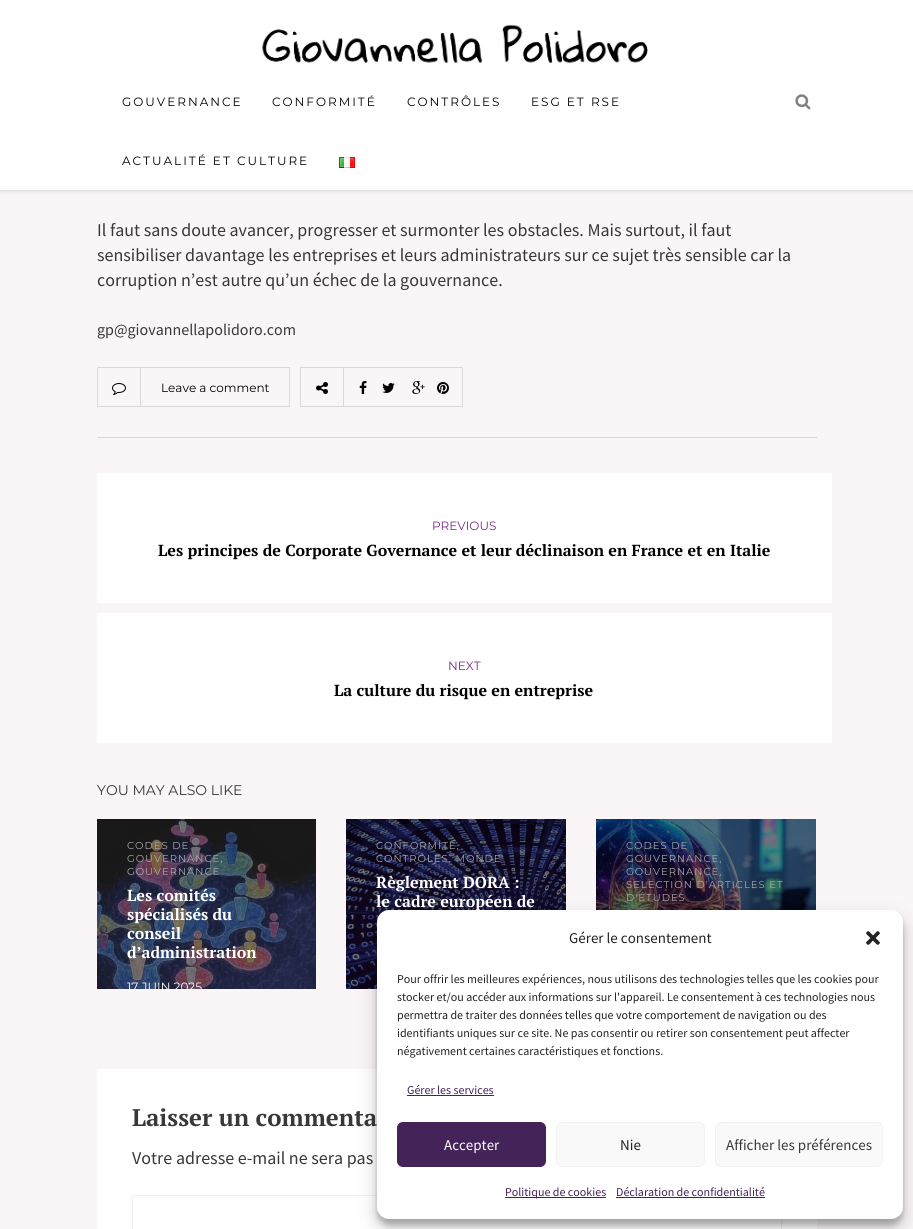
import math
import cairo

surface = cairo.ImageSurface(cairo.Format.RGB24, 913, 1229)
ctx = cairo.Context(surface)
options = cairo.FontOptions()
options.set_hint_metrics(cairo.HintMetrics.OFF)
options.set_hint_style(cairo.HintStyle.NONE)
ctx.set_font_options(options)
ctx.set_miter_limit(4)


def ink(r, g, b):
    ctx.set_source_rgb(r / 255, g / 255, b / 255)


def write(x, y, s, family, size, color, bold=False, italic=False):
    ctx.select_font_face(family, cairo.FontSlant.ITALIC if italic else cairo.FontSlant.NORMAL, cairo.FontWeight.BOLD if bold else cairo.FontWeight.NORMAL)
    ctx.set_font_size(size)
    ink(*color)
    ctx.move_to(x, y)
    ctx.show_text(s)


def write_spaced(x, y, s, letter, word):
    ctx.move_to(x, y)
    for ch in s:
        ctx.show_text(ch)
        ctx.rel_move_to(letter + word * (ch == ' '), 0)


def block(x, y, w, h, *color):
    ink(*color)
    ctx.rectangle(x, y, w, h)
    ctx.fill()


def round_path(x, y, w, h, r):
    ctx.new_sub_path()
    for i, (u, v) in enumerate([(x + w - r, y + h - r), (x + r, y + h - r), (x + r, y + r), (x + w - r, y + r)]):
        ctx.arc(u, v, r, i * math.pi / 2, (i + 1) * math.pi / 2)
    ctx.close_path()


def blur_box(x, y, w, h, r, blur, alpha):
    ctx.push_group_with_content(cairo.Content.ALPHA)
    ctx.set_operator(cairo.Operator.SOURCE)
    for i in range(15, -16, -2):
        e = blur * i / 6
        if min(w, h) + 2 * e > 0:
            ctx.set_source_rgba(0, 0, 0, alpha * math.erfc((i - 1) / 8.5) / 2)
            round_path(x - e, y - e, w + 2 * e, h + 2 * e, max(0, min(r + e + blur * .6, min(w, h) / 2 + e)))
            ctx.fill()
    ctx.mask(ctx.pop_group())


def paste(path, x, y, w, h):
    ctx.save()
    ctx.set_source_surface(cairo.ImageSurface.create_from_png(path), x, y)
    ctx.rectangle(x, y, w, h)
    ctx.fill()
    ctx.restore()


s1 = dict(family="Source Sans Pro", size=18, color=(56, 56, 56))
s2 = dict(family="Source Sans Pro", size=16, color=(56, 56, 56))
s3 = dict(family="Montserrat Thin", size=12, color=(0, 0, 0))
s4 = dict(family="Montserrat Thin", size=12, color=(119, 43, 132))
s5 = dict(family="PT Serif", size=16, color=(0, 0, 0), bold=True)
s6 = dict(family="Montserrat Thin", size=14, color=(56, 56, 56))
s7 = dict(family="PT Serif", size=16, color=(255, 255, 255), bold=True)
s8 = dict(family="Montserrat Thin", size=12, color=(255, 255, 255))
s9 = dict(family="PT Serif", size=24, color=(56, 56, 56), bold=True)
s10 = dict(family="Source Sans Pro", size=15, color=(34, 34, 34))
s11 = dict(family="Source Sans Pro", size=12, color=(34, 34, 34))
s12 = dict(family="Source Sans Pro", size=12, color=(68, 35, 89))
s13 = dict(family="Source Sans Pro", size=15, color=(255, 255, 255))
s14 = dict(family="Source Sans Pro", size=15, color=(56, 56, 56))

ink(250, 245, 247)
ctx.paint()
ink(0, 0, 0)
blur_box(0, 0, 913, 190, 0, 2.5, 0.2)
block(0, 0, 913, 190, 255, 255, 255)
paste("pic1.png", 262, 24, 386, 40)
ctx.select_font_face("Montserrat Thin")
ctx.set_font_size(12)
ink(0, 0, 0)
write_spaced(122, 106, "GOUVERNANCE", 2, 0)
write_spaced(272, 106, "CONFORMITÉ", 2, 0)
write_spaced(407, 106, "CONTRÔLES", 2, 0)
write_spaced(531, 106, "ESG ET RSE", 2, 0)
write_spaced(122, 165, "ACTUALITÉ ET CULTURE", 2, 0)
paste("pic2.png", 339, 157, 16, 11)
paste("pic3.png", 795, 94, 16, 16)
block(97, 437, 720, 1, 217, 217, 217)
write(97, 236, "Il faut sans doute avancer, progresser et surmonter les obstacles. Mais surtout, il faut", **s1)
write(97, 261, "sensibiliser davantage les entreprises et leurs administrateurs sur ce sujet très sensible car la", **s1)
write(97, 286, "corruption n’est autre qu’un échec de la gouvernance.", **s1)
write(97, 335, "gp@giovannellapolidoro.com", **s2)
ctx.rectangle(97.5, 367.5, 43, 39)
ink(217, 217, 217)
ctx.set_line_width(1)
ctx.stroke()
paste("pic4.png", 112, 383, 14, 12)
block(141, 367, 149, 1, 217, 217, 217)
block(289, 367, 1, 40, 217, 217, 217)
block(141, 406, 149, 1, 217, 217, 217)
write(161, 392, "Leave a comment", **s3)
ctx.rectangle(300.5, 367.5, 43, 39)
ink(217, 217, 217)
ctx.stroke()
paste("pic5.png", 316, 382, 12, 12)
block(343, 367, 120, 1, 217, 217, 217)
block(343, 406, 90, 1, 217, 217, 217)
paste("pic6.png", 359, 381, 8, 13)
paste("pic7.png", 382, 383, 13, 10)
paste("pic8.png", 412, 381, 13, 13)
block(462, 367, 1, 40, 217, 217, 217)
block(433, 406, 30, 1, 217, 217, 217)
paste("pic9.png", 437, 382, 12, 12)
block(97, 473, 735, 130, 255, 255, 255)
write(432, 530, "PREVIOUS", **s4)
write(158, 556, "Les principes de Corporate Governance et leur déclinaison en France et en Italie", **s5)
block(97, 613, 735, 130, 255, 255, 255)
write(448, 670, "NEXT", **s4)
write(334, 696, "La culture du risque en entreprise", **s5)
write(97, 795, "YOU MAY ALSO LIKE", **s6)
paste("pic10.png", 97, 819, 219, 170)
ctx.set_font_size(10)
ink(166, 167, 168)
write_spaced(127, 849, "CODES DE", 1, 0)
write_spaced(127, 862, "GOUVERNANCE,", 1, 0)
write_spaced(127, 875, "GOUVERNANCE", 1, 0)
write(127, 901, "Les comités", **s7)
write(127, 920, "spécialisés du", **s7)
write(127, 939, "conseil", **s7)
write(127, 958, "d’administration", **s7)
ctx.save()
ctx.rectangle(97, 819, 219, 170)
ctx.clip()
write(127, 991, "17 JUIN 2025", **s8)
ctx.restore()
paste("pic11.png", 346, 819, 220, 170)
ctx.select_font_face("Montserrat Thin")
ctx.set_font_size(10)
ink(166, 167, 168)
write_spaced(376, 849, "CONFORMITÉ,", 1, 0)
write_spaced(376, 862, "CONTRÔLES, MONDE", 1, 0)
write(376, 888, "Règlement DORA :", **s7)
write(376, 907, "le cadre européen de", **s7)
paste("pic12.png", 596, 819, 220, 91)
ctx.select_font_face("Montserrat Thin")
ctx.set_font_size(10)
ink(166, 167, 168)
write_spaced(626, 849, "CODES DE", 1, 0)
write_spaced(626, 862, "GOUVERNANCE,", 1, 0)
write_spaced(626, 875, "GOUVERNANCE,", 1, 0)
write_spaced(626, 888, "SELECTION D'ARTICLES ET", 1, 0)
write_spaced(626, 901, "D'ÉTUDES", 1, 0)
block(97, 1069, 720, 160, 255, 255, 255)
write(132, 1126, "Laisser un commenta", **s9)
write(132, 1164, "Votre adresse e-mail ne sera pas", **s1)
round_path(132.5, 1195.5, 649, 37, 2.5)
ink(238, 238, 238)
ctx.stroke()
ink(0, 0, 0)
blur_box(377, 916, 526, 309, 12, 3, 0.23)
blur_box(377, 920, 526, 309, 12, 10, 0.19)
ink(255, 255, 255)
round_path(377, 910, 526, 309, 12)
ctx.fill()
write(569, 943, "Gérer le consentement", **s10)
paste("pic13.png", 866, 931, 14, 14)
write(397, 983, "Pour offrir les meilleures expériences, nous utilisons des technologies telles que les cookies pour", **s11)
write(397, 1001, "stocker et/ou accéder aux informations sur l'appareil. Le consentement à ces technologies nous", **s11)
write(397, 1019, "permettra de traiter des données telles que votre comportement de navigation ou des", **s11)
write(397, 1037, "identifiants uniques sur ce site. Ne pas consentir ou retirer son consentement peut affecter", **s11)
write(397, 1055, "négativement certaines caractéristiques et fonctions.", **s11)
write(407, 1094, "Gérer les services", **s12)
block(407, 1095, 87, 1, 68, 35, 89)
round_path(397.5, 1122.5, 148, 44, 5.5)
ctx.fill_preserve()
ctx.stroke()
write(444, 1150, "Accepter", **s13)
ink(249, 249, 249)
round_path(556.5, 1122.5, 148, 44, 5.5)
ctx.fill_preserve()
ink(242, 242, 242)
ctx.stroke()
write(620, 1150, "Nie", **s10)
ink(249, 249, 249)
round_path(715.5, 1122.5, 167, 44, 5.5)
ctx.fill_preserve()
ink(242, 242, 242)
ctx.stroke()
write(726, 1150, "Afficher les préférences", **s14)
block(505, 1197, 101, 1, 68, 35, 89)
write(505, 1196, "Politique de cookies", **s12)
write(616, 1196, "Déclaration de confidentialité", **s12)
block(616, 1197, 149, 1, 68, 35, 89)
surface.write_to_png("screenshot.png")
